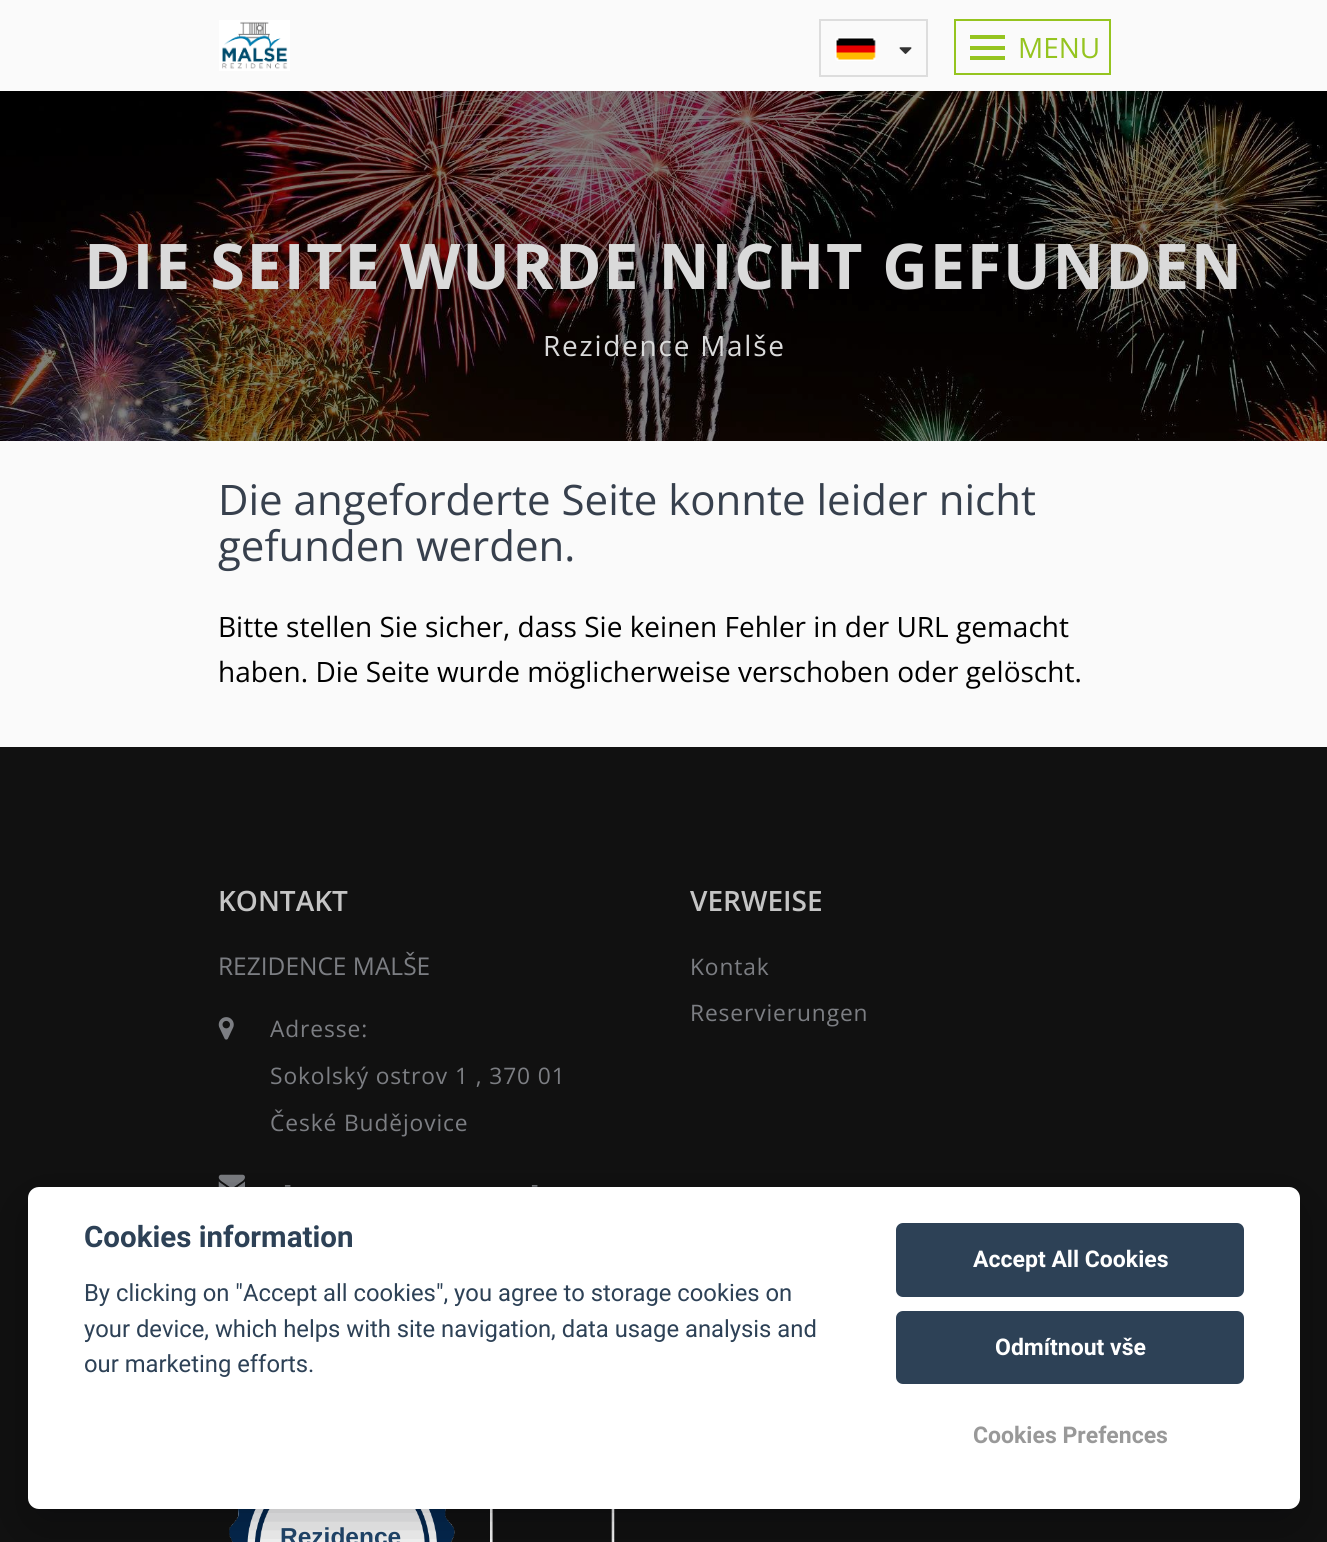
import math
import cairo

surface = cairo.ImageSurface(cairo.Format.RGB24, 1327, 1542)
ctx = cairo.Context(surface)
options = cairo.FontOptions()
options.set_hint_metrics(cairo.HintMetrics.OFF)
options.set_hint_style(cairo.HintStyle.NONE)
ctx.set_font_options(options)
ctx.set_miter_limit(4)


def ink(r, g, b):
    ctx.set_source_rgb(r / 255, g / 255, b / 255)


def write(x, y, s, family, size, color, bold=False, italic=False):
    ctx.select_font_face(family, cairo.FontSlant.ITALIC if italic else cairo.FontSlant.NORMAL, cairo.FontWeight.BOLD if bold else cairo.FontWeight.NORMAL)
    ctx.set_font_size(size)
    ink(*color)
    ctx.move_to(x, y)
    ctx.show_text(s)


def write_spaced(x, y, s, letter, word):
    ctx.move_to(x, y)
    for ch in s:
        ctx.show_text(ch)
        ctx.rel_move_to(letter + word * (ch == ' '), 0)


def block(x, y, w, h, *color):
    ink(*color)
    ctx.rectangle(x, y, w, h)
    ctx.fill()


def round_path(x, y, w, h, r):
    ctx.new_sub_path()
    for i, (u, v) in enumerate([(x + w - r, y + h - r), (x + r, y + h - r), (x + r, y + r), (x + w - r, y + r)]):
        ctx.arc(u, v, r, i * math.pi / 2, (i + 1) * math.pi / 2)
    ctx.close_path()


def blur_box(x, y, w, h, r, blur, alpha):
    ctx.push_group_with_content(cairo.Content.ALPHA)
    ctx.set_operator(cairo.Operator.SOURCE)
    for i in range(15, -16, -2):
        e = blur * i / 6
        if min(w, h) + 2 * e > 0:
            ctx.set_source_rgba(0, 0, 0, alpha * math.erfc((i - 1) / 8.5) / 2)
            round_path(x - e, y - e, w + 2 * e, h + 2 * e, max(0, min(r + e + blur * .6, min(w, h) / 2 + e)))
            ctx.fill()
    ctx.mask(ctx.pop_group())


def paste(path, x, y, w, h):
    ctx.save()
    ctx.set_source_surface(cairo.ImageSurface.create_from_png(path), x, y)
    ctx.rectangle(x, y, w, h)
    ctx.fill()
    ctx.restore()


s1 = dict(family="Open Sans", size=28, color=(149, 196, 31))
s2 = dict(family="Open Sans", size=42, color=(55, 64, 77))
s3 = dict(family="Open Sans", size=28, color=(0, 0, 0))
s4 = dict(family="Open Sans SemiBold", size=28, color=(197, 197, 197))
s5 = dict(family="Open Sans", size=24.5, color=(124, 126, 131))
s6 = dict(family="Liberation Sans", size=24.5, color=(34, 73, 112), bold=True)
s7 = dict(family="Roboto", size=29.5, color=(45, 65, 86), bold=True)
s8 = dict(family="Roboto", size=23.8, color=(45, 65, 86))
s9 = dict(family="Roboto", size=23, color=(255, 255, 255), bold=True)
s10 = dict(family="Roboto", size=23, color=(153, 153, 153), bold=True)

ink(250, 250, 250)
ctx.paint()
paste("pic1.png", 219, 20, 71, 51)
ctx.rectangle(820, 20, 107, 56)
ink(221, 221, 221)
ctx.stroke()
paste("pic2.png", 835, 37, 41, 24)
paste("pic3.png", 899, 47, 13, 7)
ctx.rectangle(955, 20, 155, 54)
ink(149, 196, 31)
ctx.stroke()
block(970, 46, 35, 4, 149, 196, 31)
block(970, 35, 35, 4, 149, 196, 31)
block(970, 56, 35, 4, 149, 196, 31)
write(1018, 58, "MENU", **s1)
paste("pic4.png", 0, 91, 1327, 350)
ctx.select_font_face("Open Sans", cairo.FontSlant.NORMAL, cairo.FontWeight.BOLD)
ctx.set_font_size(63)
ink(218, 218, 218)
write_spaced(84, 289, "DIE SEITE WURDE NICHT GEFUNDEN", 1.75, 0)
ctx.select_font_face("Open Sans")
ctx.set_font_size(28)
write_spaced(543, 356, "Rezidence Malše", 1.75, 0)
write(218, 515, "Die angeforderte Seite konnte leider nicht", **s2)
write(218, 561, "gefunden werden.", **s2)
write(218, 637, "Bitte stellen Sie sicher, dass Sie keinen Fehler in der URL gemacht", **s3)
write(218, 682, "haben. Die Seite wurde möglicherweise verschoben oder gelöscht.", **s3)
block(0, 747, 1327, 795, 17, 17, 17)
write(218, 911, "KONTAKT", **s4)
write(218, 975, "REZIDENCE MALŠE", **s5)
paste("pic5.png", 218, 1017, 16, 23)
ctx.set_font_size(22.75)
write_spaced(270, 1037, "Adresse:", 0.9, 0)
write_spaced(270, 1084, "Sokolský ostrov 1 , 370 01", 0.9, 0)
write_spaced(270, 1131, "České Budějovice", 0.9, 0)
paste("pic6.png", 218, 1174, 27, 13)
write_spaced(284, 1192, "-", 0.9, 0)
write_spaced(531, 1192, "-", 0.9, 0)
paste("pic7.png", 229, 1509, 226, 33)
write(280, 1545, "Rezidence", **s6)
paste("pic8.png", 490, 1509, 125, 33)
write(690, 911, "VERWEISE", **s4)
ctx.select_font_face("Open Sans")
ctx.set_font_size(22.75)
ink(124, 126, 131)
write_spaced(690, 975, "Kontak", 0.9, 0)
write_spaced(690, 1021, "Reservierungen", 0.9, 0)
ink(2, 2, 3)
blur_box(28, 1204, 1272, 322, 11, 26, 0.28)
ink(255, 255, 255)
round_path(28, 1187, 1272, 322, 11)
ctx.fill()
write(84, 1247, "Cookies information", **s7)
write(84, 1301, "By clicking on \"Accept all cookies\", you agree to storage cookies on", **s8)
write(84, 1337, "your device, which helps with site navigation, data usage analysis and", **s8)
write(84, 1372, "our marketing efforts.", **s8)
round_path(896, 1223, 348, 74, 7)
ctx.fill()
write(973, 1267, "Accept All Cookies", **s9)
ink(45, 65, 86)
round_path(896, 1311, 348, 73, 7)
ctx.fill()
write(995, 1355, "Odmítnout vše", **s9)
write(973, 1443, "Cookies Prefences", **s10)
surface.write_to_png("screenshot.png")
